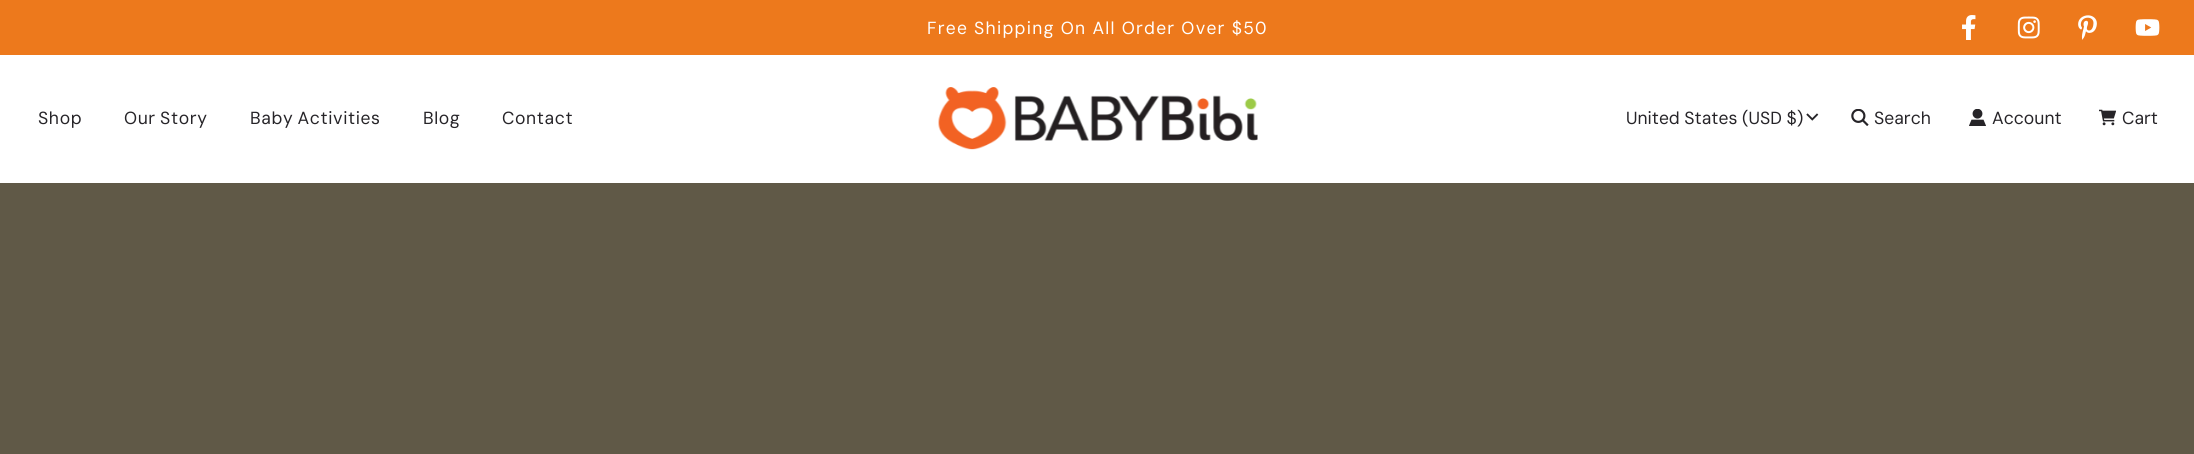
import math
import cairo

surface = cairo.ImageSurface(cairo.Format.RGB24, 2194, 454)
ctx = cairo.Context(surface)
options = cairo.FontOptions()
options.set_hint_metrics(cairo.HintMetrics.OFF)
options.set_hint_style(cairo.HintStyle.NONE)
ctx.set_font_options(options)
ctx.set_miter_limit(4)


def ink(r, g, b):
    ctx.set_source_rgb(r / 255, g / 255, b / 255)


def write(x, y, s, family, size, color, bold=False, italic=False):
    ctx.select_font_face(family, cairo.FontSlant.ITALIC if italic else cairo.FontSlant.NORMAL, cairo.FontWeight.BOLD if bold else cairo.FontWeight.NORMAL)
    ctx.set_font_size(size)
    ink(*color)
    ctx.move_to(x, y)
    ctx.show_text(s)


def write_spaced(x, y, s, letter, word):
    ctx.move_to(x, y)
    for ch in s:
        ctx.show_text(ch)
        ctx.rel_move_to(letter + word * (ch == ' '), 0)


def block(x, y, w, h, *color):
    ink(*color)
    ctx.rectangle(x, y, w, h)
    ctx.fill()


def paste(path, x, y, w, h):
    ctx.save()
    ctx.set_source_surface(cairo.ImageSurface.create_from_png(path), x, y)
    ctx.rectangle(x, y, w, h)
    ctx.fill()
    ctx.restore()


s1 = dict(family="DM Sans", size=17.5, color=(38, 36, 40))

ink(237, 121, 28)
ctx.paint()
ctx.select_font_face("DM Sans")
ctx.set_font_size(17.5)
ink(255, 255, 255)
write_spaced(927, 34, "Free Shipping On All Order Over $50", 1.25, 0)
paste("pic1.png", 1962, 15, 14, 25)
paste("pic2.png", 2017, 16, 23, 23)
paste("pic3.png", 2078, 15, 19, 25)
paste("pic4.png", 2135, 19, 25, 17)
block(0, 55, 2194, 128, 255, 255, 255)
ink(38, 36, 40)
write_spaced(38, 124, "Shop", 0.6, 0)
write_spaced(124, 124, "Our Story", 0.6, -1)
write_spaced(250, 124, "Baby Activities", 0.6, -1)
write_spaced(423, 124, "Blog", 0.6, 0)
write_spaced(502, 124, "Contact", 0.6, 0)
paste("pic5.png", 938, 87, 320, 63)
write(1626, 124, "United States (USD $)", **s1)
paste("pic6.png", 1806, 113, 13, 8)
paste("pic7.png", 1851, 109, 18, 17)
write(1874, 124, "Search", **s1)
paste("pic8.png", 1969, 109, 17, 17)
write(1992, 124, "Account", **s1)
paste("pic9.png", 2099, 109, 17, 17)
write(2122, 124, "Cart", **s1)
block(0, 183, 2194, 271, 96, 89, 71)
surface.write_to_png("screenshot.png")
